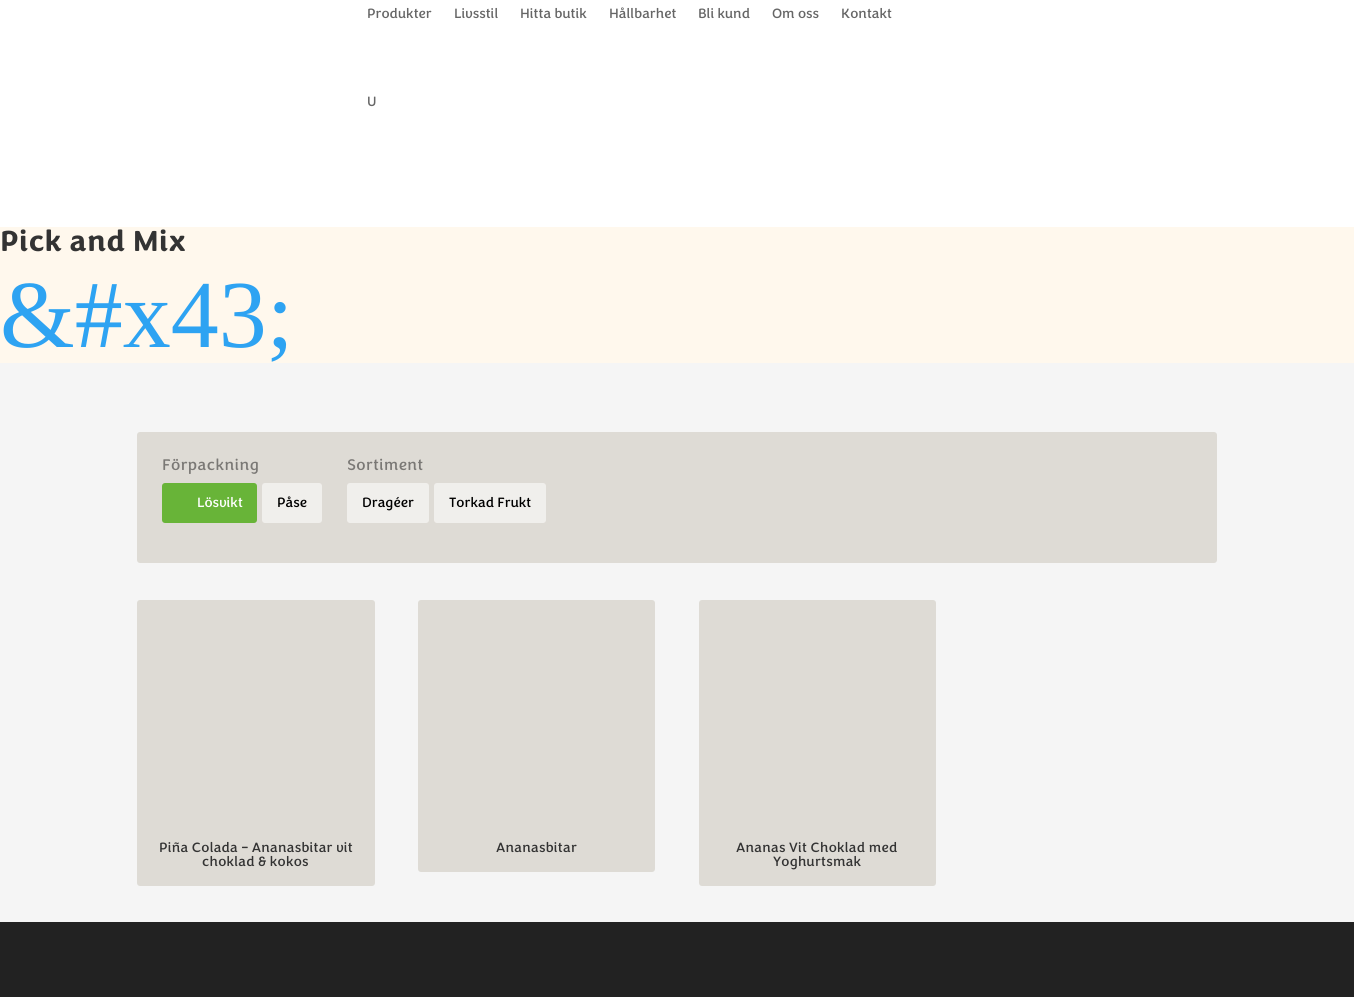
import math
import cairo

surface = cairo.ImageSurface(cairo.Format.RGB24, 1354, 997)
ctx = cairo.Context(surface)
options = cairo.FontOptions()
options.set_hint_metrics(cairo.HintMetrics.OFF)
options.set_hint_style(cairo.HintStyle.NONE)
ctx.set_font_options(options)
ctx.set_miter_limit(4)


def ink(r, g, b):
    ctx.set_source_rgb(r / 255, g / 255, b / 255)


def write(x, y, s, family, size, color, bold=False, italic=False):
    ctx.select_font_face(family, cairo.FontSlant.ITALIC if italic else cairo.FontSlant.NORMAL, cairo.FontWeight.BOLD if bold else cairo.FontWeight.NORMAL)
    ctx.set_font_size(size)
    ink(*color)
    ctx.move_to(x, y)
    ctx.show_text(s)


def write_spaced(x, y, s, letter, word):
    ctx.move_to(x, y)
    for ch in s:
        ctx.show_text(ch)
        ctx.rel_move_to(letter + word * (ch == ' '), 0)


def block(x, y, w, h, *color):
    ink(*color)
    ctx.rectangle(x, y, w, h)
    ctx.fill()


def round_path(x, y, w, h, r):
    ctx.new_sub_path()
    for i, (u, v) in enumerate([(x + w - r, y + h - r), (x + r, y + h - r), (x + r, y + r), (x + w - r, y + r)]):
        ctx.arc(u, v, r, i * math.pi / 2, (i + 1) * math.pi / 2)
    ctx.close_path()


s1 = dict(family="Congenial", size=14, color=(102, 102, 102))
s2 = dict(family="Liberation Serif", size=96, color=(46, 163, 242))
s3 = dict(family="Congenial", size=14, color=(255, 255, 255))
s4 = dict(family="Congenial", size=14, color=(0, 0, 0))

ink(255, 248, 237)
ctx.paint()
block(0, 0, 1354, 227, 255, 255, 255)
write(367, 18, "Produkter", **s1)
write(454, 18, "Livsstil", **s1)
write(520, 18, "Hitta butik", **s1)
write(609, 18, "Hållbarhet", **s1)
write(698, 18, "Bli kund", **s1)
write(772, 18, "Om oss", **s1)
write(841, 18, "Kontakt", **s1)
write(367, 106, "U", **s1)
ctx.select_font_face("Congenial", cairo.FontSlant.NORMAL, cairo.FontWeight.BOLD)
ctx.set_font_size(30)
ink(51, 51, 51)
write_spaced(0, 251, "Pick and Mix", 0.5, 0)
write(0, 347, "&#x43;", **s2)
block(0, 363, 1354, 559, 245, 245, 245)
ink(222, 219, 213)
round_path(137, 432, 1080, 131, 3)
ctx.fill()
ctx.select_font_face("Congenial")
ctx.set_font_size(16)
ink(122, 120, 117)
write_spaced(162, 470, "Förpackning", 0.4, 0)
ink(104, 180, 56)
round_path(162, 483, 95, 40, 3)
ctx.fill()
write(197, 507, "Lösvikt", **s3)
ink(240, 239, 236)
round_path(262, 483, 60, 40, 3)
ctx.fill()
write(277, 507, "Påse", **s4)
ctx.set_font_size(16)
ink(122, 120, 117)
write_spaced(347, 470, "Sortiment", 0.4, 0)
ink(240, 239, 236)
round_path(347, 483, 82, 40, 3)
ctx.fill()
write(362, 507, "Dragéer", **s4)
ink(240, 239, 236)
round_path(434, 483, 112, 40, 3)
ctx.fill()
write(449, 507, "Torkad Frukt", **s4)
ink(222, 219, 213)
round_path(137, 600, 238, 286, 3)
ctx.fill()
ink(51, 51, 51)
write_spaced(159, 852, "Piña Colada – Ananasbitar vit", 0.2, 0)
write_spaced(202, 866, "choklad & kokos", 0.2, 0)
ink(222, 219, 213)
round_path(418, 600, 237, 272, 3)
ctx.fill()
ink(51, 51, 51)
write_spaced(496, 852, "Ananasbitar", 0.2, 0)
ink(222, 219, 213)
round_path(699, 600, 237, 286, 3)
ctx.fill()
ink(51, 51, 51)
write_spaced(736, 852, "Ananas Vit Choklad med", 0.2, 0)
write_spaced(773, 866, "Yoghurtsmak", 0.2, 0)
block(0, 922, 1354, 75, 34, 34, 34)
surface.write_to_png("screenshot.png")
